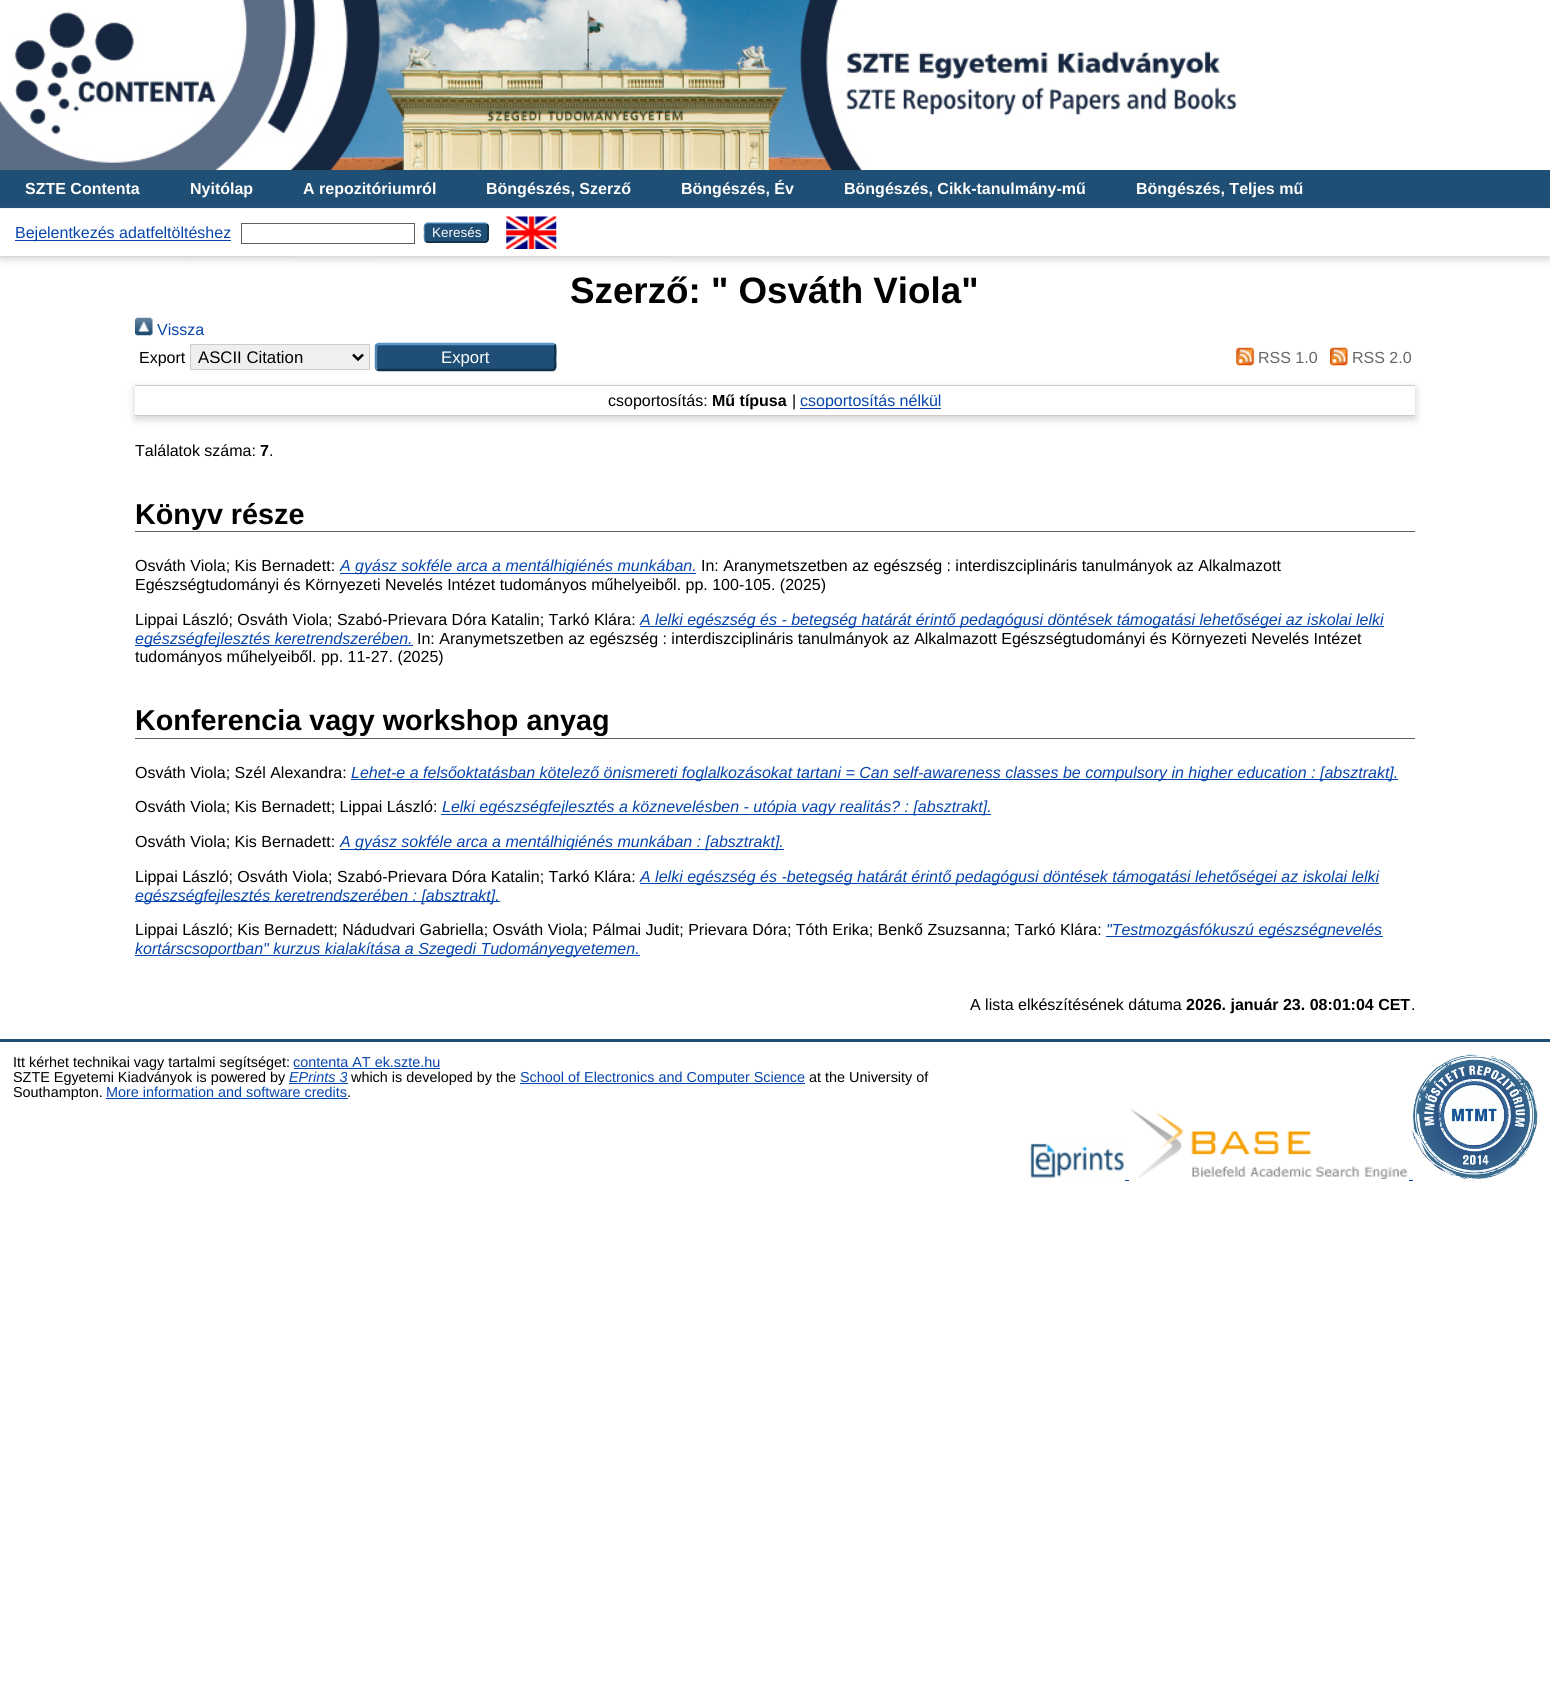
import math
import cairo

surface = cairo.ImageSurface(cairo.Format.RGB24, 1550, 1700)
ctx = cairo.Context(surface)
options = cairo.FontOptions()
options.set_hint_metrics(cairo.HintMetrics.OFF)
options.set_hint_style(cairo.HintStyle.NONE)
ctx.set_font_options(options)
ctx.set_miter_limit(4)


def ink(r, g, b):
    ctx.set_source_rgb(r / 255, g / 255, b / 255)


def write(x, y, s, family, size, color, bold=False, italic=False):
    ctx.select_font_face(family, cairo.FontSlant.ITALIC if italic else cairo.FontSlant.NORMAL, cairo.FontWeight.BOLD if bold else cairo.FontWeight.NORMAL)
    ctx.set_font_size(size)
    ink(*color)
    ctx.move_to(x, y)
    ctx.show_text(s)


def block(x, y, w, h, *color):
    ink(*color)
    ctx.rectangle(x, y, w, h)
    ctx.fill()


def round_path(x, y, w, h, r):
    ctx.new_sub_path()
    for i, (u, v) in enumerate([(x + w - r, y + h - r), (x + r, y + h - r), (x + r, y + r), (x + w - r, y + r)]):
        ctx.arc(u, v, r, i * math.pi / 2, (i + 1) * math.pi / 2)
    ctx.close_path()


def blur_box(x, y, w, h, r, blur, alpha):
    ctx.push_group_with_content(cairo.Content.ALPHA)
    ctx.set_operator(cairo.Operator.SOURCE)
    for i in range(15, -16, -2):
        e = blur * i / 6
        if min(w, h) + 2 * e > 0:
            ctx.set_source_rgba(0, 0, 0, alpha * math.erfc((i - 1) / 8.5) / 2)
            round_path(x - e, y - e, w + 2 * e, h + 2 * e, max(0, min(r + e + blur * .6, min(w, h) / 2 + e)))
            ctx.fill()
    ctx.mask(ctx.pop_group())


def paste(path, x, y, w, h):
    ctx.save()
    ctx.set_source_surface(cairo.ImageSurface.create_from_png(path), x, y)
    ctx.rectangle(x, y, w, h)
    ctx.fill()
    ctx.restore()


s1 = dict(family="Liberation Sans", size=16, color=(255, 255, 255), bold=True)
s2 = dict(family="Liberation Sans", size=16, color=(6, 69, 173))
s3 = dict(family="Liberation Sans", size=13.5, color=(255, 255, 255))
s4 = dict(family="Liberation Sans", size=36.75, color=(0, 0, 0), bold=True)
s5 = dict(family="Liberation Sans", size=16, color=(0, 0, 0))
s6 = dict(family="Liberation Sans", size=16.75, color=(0, 0, 0))
s7 = dict(family="Liberation Sans", size=16.75, color=(255, 255, 255))
s8 = dict(family="Liberation Sans", size=16, color=(102, 102, 102))
s9 = dict(family="Liberation Sans", size=16, color=(0, 0, 0), bold=True)
s10 = dict(family="Liberation Sans", size=28.75, color=(0, 0, 0), bold=True)
s11 = dict(family="Liberation Sans", size=16, color=(6, 69, 173), italic=True)
s12 = dict(family="Liberation Sans", size=14.4, color=(0, 0, 0))
s13 = dict(family="Liberation Sans", size=14.4, color=(6, 69, 173))
s14 = dict(family="Liberation Sans", size=14.4, color=(6, 69, 173), italic=True)

ink(255, 255, 255)
ctx.paint()
paste("pic1.png", 0, 256, 669, 1)
paste("pic2.png", 0, 0, 1237, 170)
block(0, 170, 1550, 38, 32, 79, 118)
write(25, 194, "SZTE Contenta", **s1)
write(190, 194, "Nyitólap", **s1)
write(303, 194, "A repozitóriumról", **s1)
write(486, 194, "Böngészés, Szerző", **s1)
write(681, 194, "Böngészés, Év", **s1)
write(844, 194, "Böngészés, Cikk-tanulmány-mű", **s1)
write(1136, 194, "Böngészés, Teljes mű", **s1)
ink(100, 100, 100)
blur_box(0, 211, 1550, 48, 0, 4, 0.3)
block(0, 209, 1550, 47, 255, 255, 255)
block(15, 240, 216, 1, 6, 69, 173)
write(15, 238, "Bejelentkezés adatfeltöltéshez", **s2)
ctx.rectangle(241.5, 223.5, 173, 20)
ink(96, 96, 96)
ctx.set_line_width(1)
ctx.stroke()
ink(31, 79, 118)
round_path(424, 223, 65, 20, 4)
ctx.fill()
ctx.new_path()
ctx.move_to(425.5, 224)
ctx.line_to(427, 223)
ctx.line_to(485.5, 223)
ctx.line_to(487, 224)
ink(91, 151, 199)
ctx.set_line_width(1.2)
ctx.stroke()
ctx.new_path()
ctx.move_to(487, 224)
ctx.curve_to(489, 226, 488, 230, 488, 232.5)
ctx.curve_to(488, 244, 488, 242, 475.5, 242)
ctx.line_to(437, 242)
ctx.curve_to(436.5, 242, 427.5, 243.5, 425.5, 241)
ink(13, 33, 49)
ctx.stroke()
ctx.new_path()
ctx.move_to(425.5, 241)
ctx.curve_to(423.5, 239, 424.5, 234.5, 424.5, 232.5)
ctx.curve_to(424.5, 230.5, 423.5, 226, 425.5, 224)
ink(82, 135, 179)
ctx.stroke()
write(432, 237, "Keresés", **s3)
paste("pic3.png", 506, 216, 51, 33)
write(570, 303, "Szerző: \" Osváth Viola\"", **s4)
paste("pic4.png", 135, 317, 18, 19)
write(157, 335, "Vissza", **s2)
write(139, 363, "Export", **s5)
ink(239, 239, 239)
ctx.rectangle(190.5, 344.5, 179, 25)
ctx.fill_preserve()
ink(204, 204, 204)
ctx.set_line_width(1)
ctx.stroke()
ctx.new_path()
ctx.move_to(353, 354.5)
ctx.line_to(358, 359.5)
ctx.line_to(363, 354.5)
ink(0, 0, 0)
ctx.set_line_width(2.5)
ctx.stroke()
write(198, 363, "ASCII Citation", **s6)
ink(31, 79, 118)
round_path(375, 343, 181, 28, 4)
ctx.fill()
ctx.new_path()
ctx.move_to(377, 344.5)
ctx.line_to(379, 344)
ctx.line_to(552.5, 344)
ctx.line_to(554.5, 344.5)
ink(91, 151, 199)
ctx.stroke()
ctx.new_path()
ctx.move_to(554.5, 344.5)
ctx.curve_to(556, 346, 555, 357.5, 555, 360.5)
ctx.curve_to(555, 362.5, 556.5, 369, 553, 370)
ctx.line_to(379, 370)
ctx.line_to(377, 369.5)
ink(19, 50, 74)
ctx.stroke()
ctx.new_path()
ctx.move_to(377, 369.5)
ctx.curve_to(376.5, 369, 376, 368, 376, 367.5)
ctx.line_to(376, 346)
ctx.curve_to(376, 345.5, 376.5, 345, 377, 344.5)
ink(82, 135, 179)
ctx.stroke()
write(441, 363, "Export", **s7)
paste("pic5.png", 1236, 347, 18, 19)
write(1258, 363, "RSS 1.0", **s8)
paste("pic6.png", 1330, 347, 18, 19)
write(1352, 363, "RSS 2.0", **s8)
ctx.save()
ctx.set_fill_rule(cairo.FillRule.EVEN_ODD)
ctx.new_path()
ctx.move_to(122, 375)
ctx.line_to(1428, 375)
ctx.line_to(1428, 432)
ctx.line_to(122, 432)
ctx.close_path()
ctx.move_to(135, 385)
ctx.line_to(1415, 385)
ctx.line_to(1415, 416)
ctx.line_to(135, 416)
ctx.close_path()
ctx.clip()
ink(100, 100, 100)
blur_box(135, 388, 1280, 31, 0, 4, 0.3)
ctx.restore()
block(135, 385, 1280, 1, 204, 204, 204)
block(135, 415, 1280, 1, 204, 204, 204)
write(608, 406, "csoportosítás:", **s5)
write(712, 406, "Mű típusa", **s9)
write(792, 406, "|", **s5)
block(800, 408, 141, 1, 6, 69, 173)
write(800, 406, "csoportosítás nélkül", **s2)
write(135, 456, "Találatok száma:", **s5)
write(260, 456, "7", **s9)
write(269, 456, ".", **s5)
block(135, 531, 1280, 1, 96, 96, 96)
write(135, 524, "Könyv része", **s10)
write(135, 571, "Osváth Viola; Kis Bernadett:", **s5)
block(340, 573, 356, 1, 6, 69, 173)
write(340, 571, "A gyász sokféle arca a mentálhigiénés munkában.", **s11)
write(701, 571, "In: Aranymetszetben az egészség : interdiszciplináris tanulmányok az Alkalmazott", **s5)
write(135, 590, "Egészségtudományi és Környezeti Nevelés Intézet tudományos műhelyeiből. pp. 100-105. (2025)", **s5)
write(135, 625, "Lippai László; Osváth Viola; Szabó-Prievara Dóra Katalin; Tarkó Klára:", **s5)
block(640, 626, 744, 1, 6, 69, 173)
write(640, 625, "A lelki egészség és - betegség határát érintő pedagógusi döntések támogatási lehetőségei az iskolai lelki", **s11)
block(135, 645, 278, 1, 6, 69, 173)
write(135, 644, "egészségfejlesztés keretrendszerében.", **s11)
write(417, 644, "In: Aranymetszetben az egészség : interdiszciplináris tanulmányok az Alkalmazott Egészségtudományi és Környezeti Nevelés Intézet", **s5)
write(135, 662, "tudományos műhelyeiből. pp. 11-27. (2025)", **s5)
block(135, 738, 1280, 1, 96, 96, 96)
write(135, 730, "Konferencia vagy workshop anyag", **s10)
write(135, 778, "Osváth Viola; Szél Alexandra:", **s5)
block(351, 779, 1047, 1, 6, 69, 173)
write(351, 778, "Lehet-e a felsőoktatásban kötelező önismereti foglalkozásokat tartani = Can self-awareness classes be compulsory in higher education : [absztrakt].", **s11)
write(135, 812, "Osváth Viola; Kis Bernadett; Lippai László:", **s5)
block(441, 814, 550, 1, 6, 69, 173)
write(442, 812, "Lelki egészségfejlesztés a köznevelésben - utópia vagy realitás? : [absztrakt].", **s11)
write(135, 847, "Osváth Viola; Kis Bernadett:", **s5)
block(340, 849, 444, 1, 6, 69, 173)
write(340, 847, "A gyász sokféle arca a mentálhigiénés munkában : [absztrakt].", **s11)
write(135, 882, "Lippai László; Osváth Viola; Szabó-Prievara Dóra Katalin; Tarkó Klára:", **s5)
block(640, 883, 739, 1, 6, 69, 173)
write(640, 882, "A lelki egészség és -betegség határát érintő pedagógusi döntések támogatási lehetőségei az iskolai lelki", **s11)
block(135, 901, 365, 1, 6, 69, 173)
write(135, 901, "egészségfejlesztés keretrendszerében : [absztrakt].", **s11)
write(135, 935, "Lippai László; Kis Bernadett; Nádudvari Gabriella; Osváth Viola; Pálmai Judit; Prievara Dóra; Tóth Erika; Benkő Zsuzsanna; Tarkó Klára:", **s5)
block(1106, 936, 277, 1, 6, 69, 173)
write(1106, 935, "\"Testmozgásfókuszú egészségnevelés", **s11)
block(135, 955, 505, 1, 6, 69, 173)
write(135, 954, "kortárscsoportban\" kurzus kialakítása a Szegedi Tudományegyetemen.", **s11)
write(970, 1010, "A lista elkészítésének dátuma", **s5)
write(1186, 1010, "2026. január 23. 08:01:04 CET", **s9)
write(1411, 1010, ".", **s5)
block(0, 1039, 1550, 3, 32, 79, 118)
write(13, 1067, "Itt kérhet technikai vagy tartalmi segítséget:", **s12)
write(293, 1067, "contenta AT ek.szte.hu", **s13)
block(294, 1068, 146, 1, 6, 69, 173)
write(13, 1082, "SZTE Egyetemi Kiadványok is powered by", **s12)
write(289, 1082, "EPrints 3", **s14)
block(289, 1083, 59, 1, 6, 69, 173)
write(351, 1082, "which is developed by the", **s12)
block(520, 1083, 285, 1, 6, 69, 173)
write(520, 1082, "School of Electronics and Computer Science", **s13)
write(809, 1082, "at the University of", **s12)
write(13, 1097, "Southampton.", **s12)
write(106, 1097, "More information and software credits", **s13)
block(106, 1098, 242, 1, 6, 69, 173)
write(347, 1097, ".", **s12)
paste("pic7.png", 1029, 1143, 95, 36)
paste("pic8.png", 1130, 1108, 278, 71)
paste("pic9.png", 1412, 1054, 126, 125)
block(1125, 1180, 4, 1, 6, 69, 173)
block(1409, 1180, 4, 1, 6, 69, 173)
surface.write_to_png("screenshot.png")
